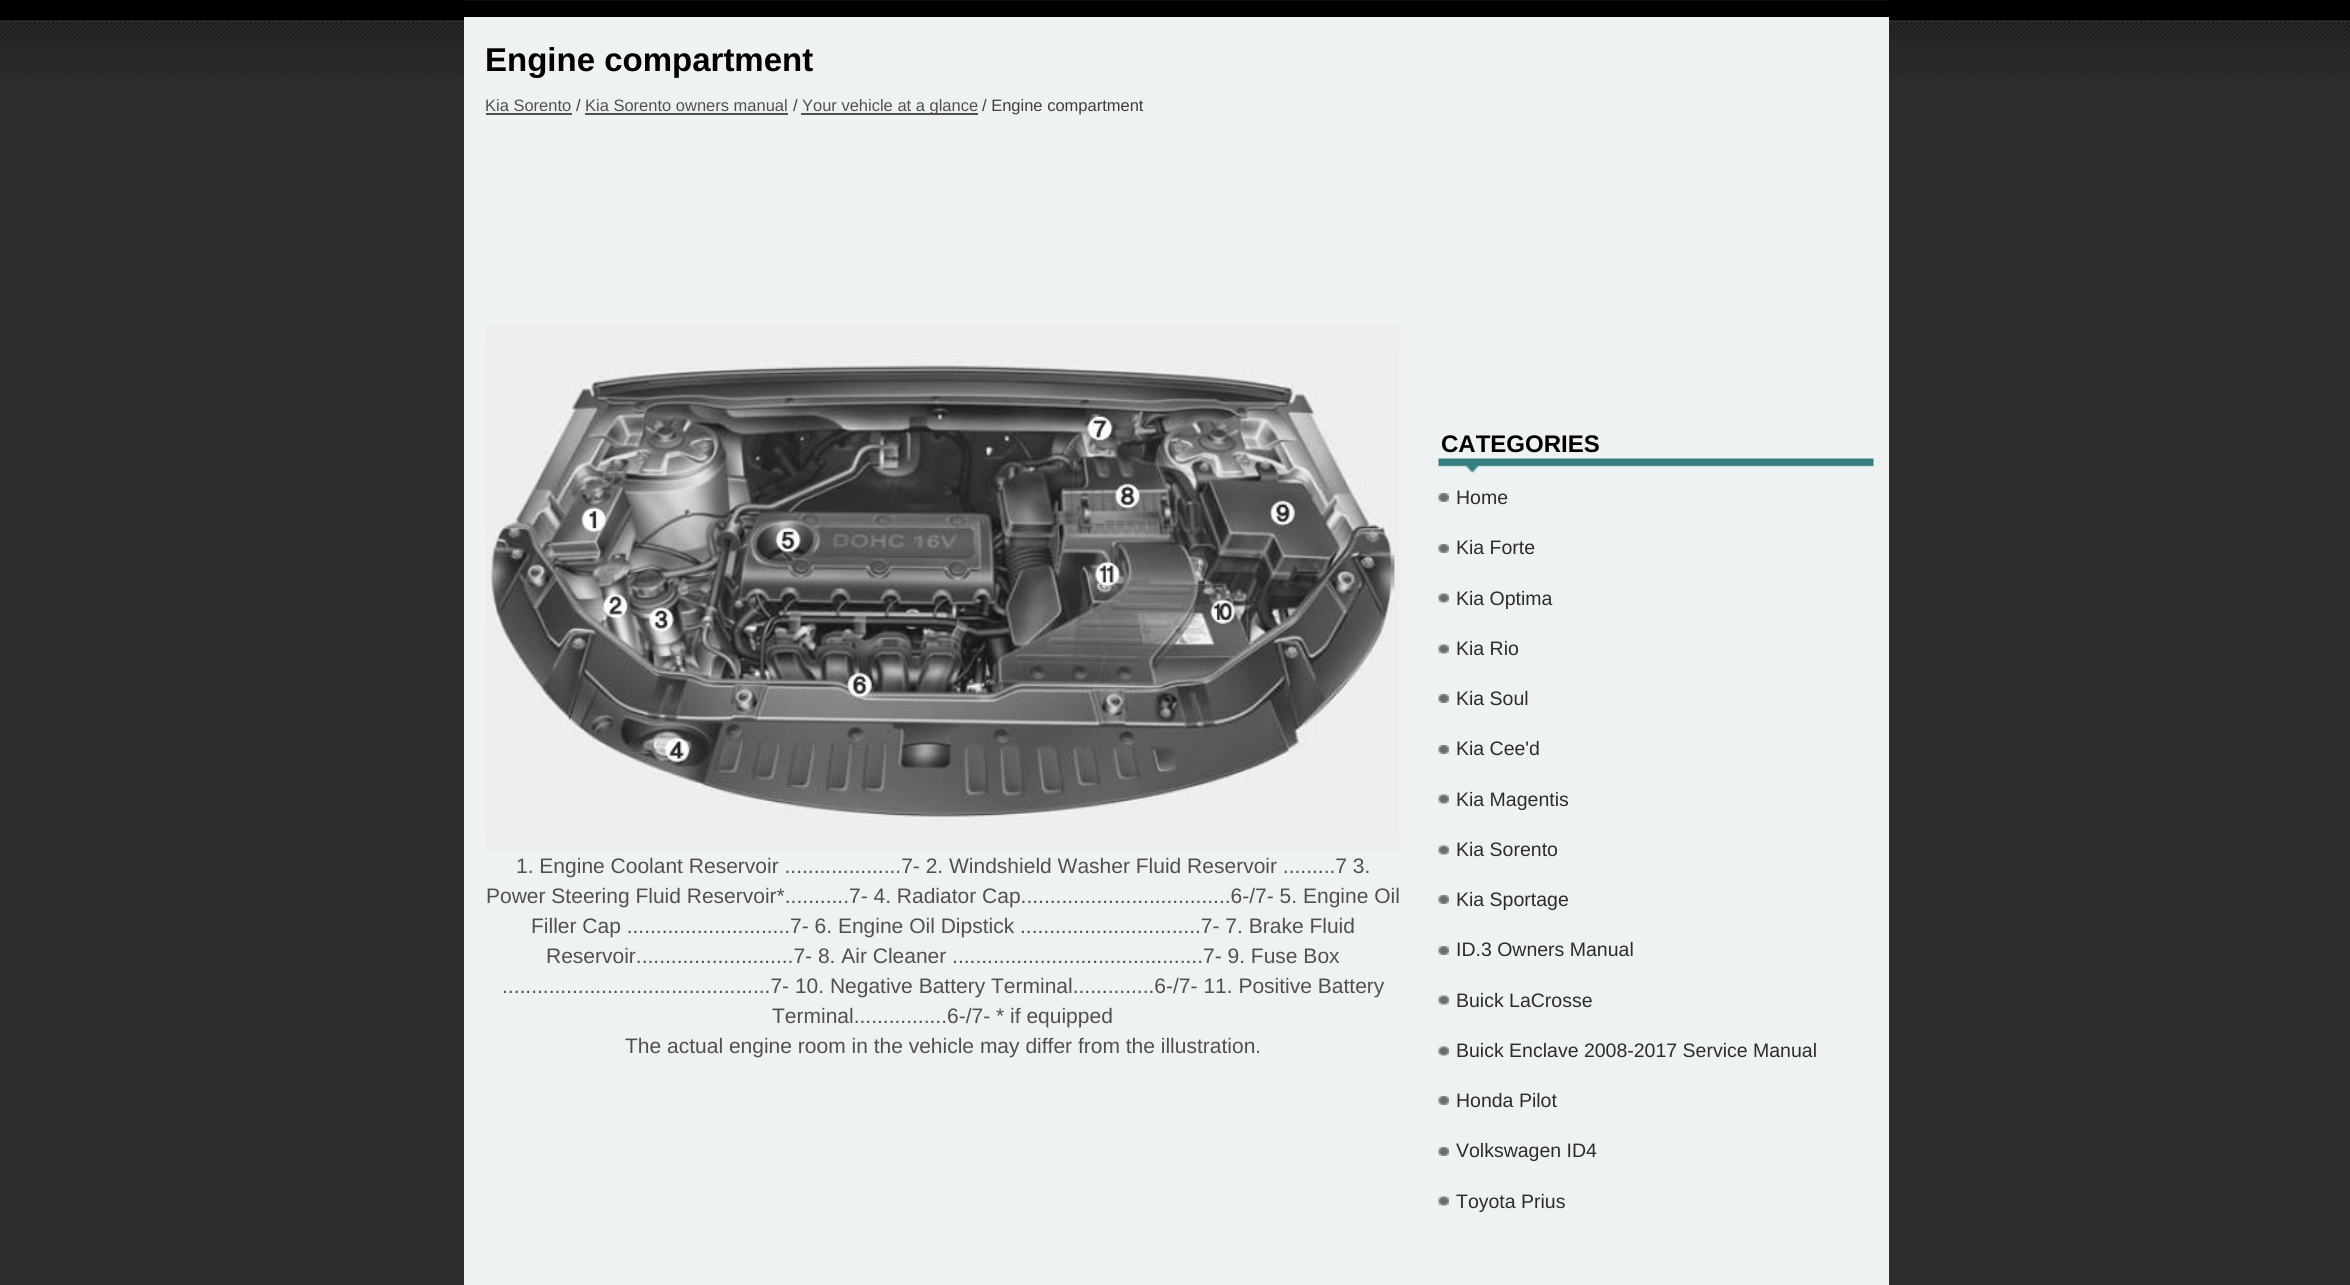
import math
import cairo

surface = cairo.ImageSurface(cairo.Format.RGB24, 2350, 1285)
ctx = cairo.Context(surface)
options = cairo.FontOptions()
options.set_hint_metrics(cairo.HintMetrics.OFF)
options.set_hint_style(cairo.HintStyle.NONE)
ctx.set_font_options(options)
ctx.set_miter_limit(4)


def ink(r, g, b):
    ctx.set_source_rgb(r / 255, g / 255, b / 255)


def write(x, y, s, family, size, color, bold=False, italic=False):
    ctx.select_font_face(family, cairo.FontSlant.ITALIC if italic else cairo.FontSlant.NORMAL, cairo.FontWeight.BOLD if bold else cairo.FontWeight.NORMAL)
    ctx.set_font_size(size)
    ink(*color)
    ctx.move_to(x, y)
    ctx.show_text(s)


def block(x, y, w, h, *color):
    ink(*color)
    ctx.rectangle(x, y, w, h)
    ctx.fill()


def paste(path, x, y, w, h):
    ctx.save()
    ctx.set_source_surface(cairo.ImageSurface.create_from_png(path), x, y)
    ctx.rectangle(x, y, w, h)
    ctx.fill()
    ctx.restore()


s1 = dict(family="Liberation Sans", size=33, color=(0, 0, 0), bold=True)
s2 = dict(family="Liberation Sans", size=16.5, color=(81, 80, 80))
s3 = dict(family="Liberation Sans", size=16.5, color=(62, 60, 60))
s4 = dict(family="Liberation Sans", size=21, color=(81, 80, 80))
s5 = dict(family="Liberation Sans", size=24, color=(0, 0, 0), bold=True)
s6 = dict(family="Liberation Sans", size=19.5, color=(44, 44, 44))

ink(44, 44, 44)
ctx.paint()
paste("pic1.png", 0, 0, 2350, 76)
paste("pic2.png", 463, 0, 1426, 1)
block(464, 17, 1425, 1268, 238, 242, 242)
write(485, 71, "Engine compartment", **s1)
write(485, 111, "Kia Sorento", **s2)
block(486, 113, 86, 2, 81, 80, 80)
write(576, 111, "/", **s3)
write(585, 111, "Kia Sorento owners manual", **s2)
block(585, 113, 203, 2, 81, 80, 80)
write(793, 111, "/", **s3)
block(801, 113, 177, 2, 81, 80, 80)
write(802, 111, "Your vehicle at a glance", **s2)
write(982, 111, "/ Engine compartment", **s3)
paste("pic3.png", 486, 325, 913, 525)
write(516, 873, "1. Engine Coolant Reservoir ....................7- 2. Windshield Washer Fluid Reservoir .........7 3.", **s4)
write(486, 903, "Power Steering Fluid Reservoir*...........7- 4. Radiator Cap....................................6-/7- 5. Engine Oil", **s4)
write(531, 933, "Filler Cap ............................7- 6. Engine Oil Dipstick ...............................7- 7. Brake Fluid", **s4)
write(546, 963, "Reservoir...........................7- 8. Air Cleaner ...........................................7- 9. Fuse Box", **s4)
write(502, 993, "..............................................7- 10. Negative Battery Terminal..............6-/7- 11. Positive Battery", **s4)
write(772, 1023, "Terminal................6-/7- * if equipped", **s4)
write(625, 1053, "The actual engine room in the vehicle may differ from the illustration.", **s4)
paste("pic4.png", 1438, 458, 436, 16)
write(1441, 452, "CATEGORIES", **s5)
paste("pic5.png", 1438, 493, 11, 9)
write(1456, 504, "Home", **s6)
paste("pic5.png", 1438, 544, 11, 9)
write(1456, 554, "Kia Forte", **s6)
paste("pic6.png", 1438, 593, 11, 10)
write(1456, 605, "Kia Optima", **s6)
paste("pic6.png", 1438, 644, 11, 10)
write(1456, 655, "Kia Rio", **s6)
paste("pic5.png", 1438, 694, 11, 9)
write(1456, 705, "Kia Soul", **s6)
paste("pic5.png", 1438, 745, 11, 9)
write(1456, 755, "Kia Cee'd", **s6)
paste("pic6.png", 1438, 794, 11, 10)
write(1456, 806, "Kia Magentis", **s6)
paste("pic6.png", 1438, 845, 11, 10)
write(1456, 856, "Kia Sorento", **s6)
paste("pic5.png", 1438, 895, 11, 9)
write(1456, 906, "Kia Sportage", **s6)
paste("pic5.png", 1438, 946, 11, 9)
write(1456, 956, "ID.3 Owners Manual", **s6)
paste("pic6.png", 1438, 995, 11, 10)
write(1456, 1007, "Buick LaCrosse", **s6)
paste("pic6.png", 1438, 1046, 11, 10)
write(1456, 1057, "Buick Enclave 2008-2017 Service Manual", **s6)
paste("pic5.png", 1438, 1096, 11, 9)
write(1456, 1107, "Honda Pilot", **s6)
paste("pic5.png", 1438, 1147, 11, 9)
write(1456, 1157, "Volkswagen ID4", **s6)
paste("pic6.png", 1438, 1196, 11, 10)
write(1456, 1208, "Toyota Prius", **s6)
surface.write_to_png("screenshot.png")
